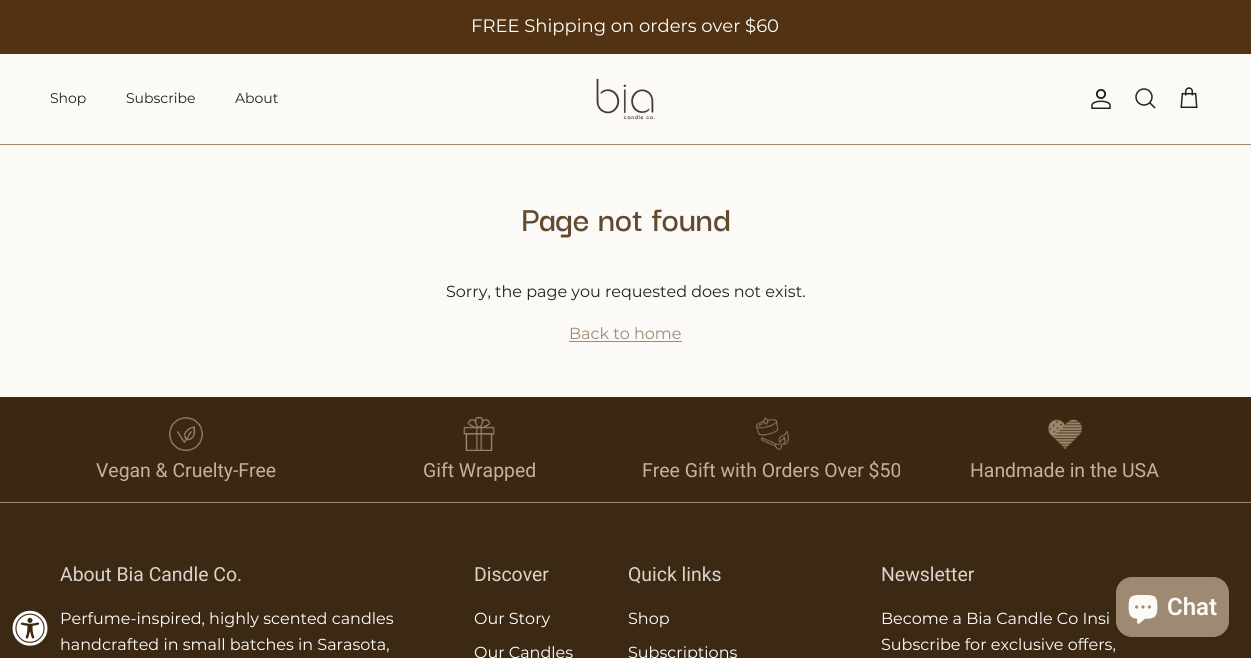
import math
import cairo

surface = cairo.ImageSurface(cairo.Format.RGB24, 1251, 658)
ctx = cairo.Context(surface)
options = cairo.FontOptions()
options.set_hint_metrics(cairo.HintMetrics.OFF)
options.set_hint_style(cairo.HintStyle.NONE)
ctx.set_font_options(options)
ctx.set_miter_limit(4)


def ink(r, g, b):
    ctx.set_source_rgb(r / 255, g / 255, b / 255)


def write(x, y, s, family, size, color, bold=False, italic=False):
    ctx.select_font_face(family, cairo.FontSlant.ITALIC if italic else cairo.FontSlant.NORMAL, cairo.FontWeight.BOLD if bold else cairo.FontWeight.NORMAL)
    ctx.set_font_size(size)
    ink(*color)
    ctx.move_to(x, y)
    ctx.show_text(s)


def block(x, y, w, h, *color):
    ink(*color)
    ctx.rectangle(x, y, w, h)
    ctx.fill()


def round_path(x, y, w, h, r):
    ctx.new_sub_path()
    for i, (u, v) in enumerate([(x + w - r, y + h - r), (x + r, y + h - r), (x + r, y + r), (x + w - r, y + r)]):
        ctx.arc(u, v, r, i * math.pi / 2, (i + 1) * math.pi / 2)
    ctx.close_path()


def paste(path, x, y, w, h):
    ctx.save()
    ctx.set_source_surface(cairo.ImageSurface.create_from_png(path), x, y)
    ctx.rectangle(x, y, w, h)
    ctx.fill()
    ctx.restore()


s1 = dict(family="Montserrat", size=18, color=(255, 255, 255))
s2 = dict(family="Montserrat", size=14, color=(34, 34, 34))
s3 = dict(family="Darker Grotesque SemiBold", size=37, color=(98, 74, 47))
s4 = dict(family="Montserrat", size=16, color=(34, 34, 34))
s5 = dict(family="Montserrat", size=16, color=(158, 138, 115))
s6 = dict(family="Roboto", size=19.4, color=(190, 179, 164))
s7 = dict(family="Roboto", size=19.4, color=(218, 212, 202))
s8 = dict(family="Montserrat", size=16, color=(255, 255, 255))
s9 = dict(family="Roboto SemiBold", size=24, color=(252, 250, 247))

ink(252, 250, 247)
ctx.paint()
block(0, 0, 1251, 54, 81, 51, 19)
write(471, 32, "FREE Shipping on orders over $60", **s1)
block(0, 144, 1251, 1, 158, 138, 115)
write(50, 103, "Shop", **s2)
write(126, 103, "Subscribe", **s2)
write(235, 103, "About", **s2)
paste("pic1.png", 596, 78, 59, 42)
paste("pic2.png", 1091, 89, 20, 20)
ctx.arc(1144, 97, 8, 0, 2 * math.pi)
ctx.set_line_width(1.5)
ctx.stroke()
ctx.new_path()
ctx.move_to(1150, 103)
ctx.line_to(1154.5, 107.5)
ctx.set_line_cap(cairo.LineCap.SQUARE)
ctx.stroke()
paste("pic3.png", 1180, 87, 18, 21)
write(521, 231, "Page not found", **s3)
write(446, 297, "Sorry, the page you requested does not exist.", **s4)
write(569, 339, "Back to home", **s5)
block(569, 341, 113, 1, 158, 138, 115)
block(0, 397, 1251, 105, 61, 39, 16)
paste("pic4.png", 169, 417, 34, 34)
write(96, 477, "Vegan & Cruelty-Free", **s6)
paste("pic5.png", 463, 417, 32, 34)
write(423, 477, "Gift Wrapped", **s6)
paste("pic6.png", 755, 417, 34, 34)
write(642, 477, "Free Gift with Orders Over $50", **s6)
paste("pic7.png", 1048, 419, 34, 31)
write(970, 477, "Handmade in the USA", **s6)
block(0, 503, 1251, 155, 60, 41, 20)
block(0, 502, 1251, 1, 158, 138, 115)
write(60, 581, "About Bia Candle Co.", **s7)
write(60, 624, "Perfume-inspired, highly scented candles", **s8)
write(60, 650, "handcrafted in small batches in Sarasota,", **s8)
write(474, 581, "Discover", **s7)
write(474, 624, "Our Story", **s8)
write(474, 658, "Our Candles", **s8)
write(628, 581, "Quick links", **s7)
write(628, 624, "Shop", **s8)
write(628, 658, "Subscriptions", **s8)
write(881, 581, "Newsletter", **s7)
write(881, 624, "Become a Bia Candle Co Insi", **s8)
write(881, 650, "Subscribe for exclusive offers,", **s8)
ink(158, 138, 115)
round_path(1116, 577, 113, 60, 16)
ctx.fill()
paste("pic8.png", 1128, 595, 30, 29)
write(1167, 615, "Chat", **s9)
paste("pic9.png", 12, 610, 36, 36)
surface.write_to_png("screenshot.png")
